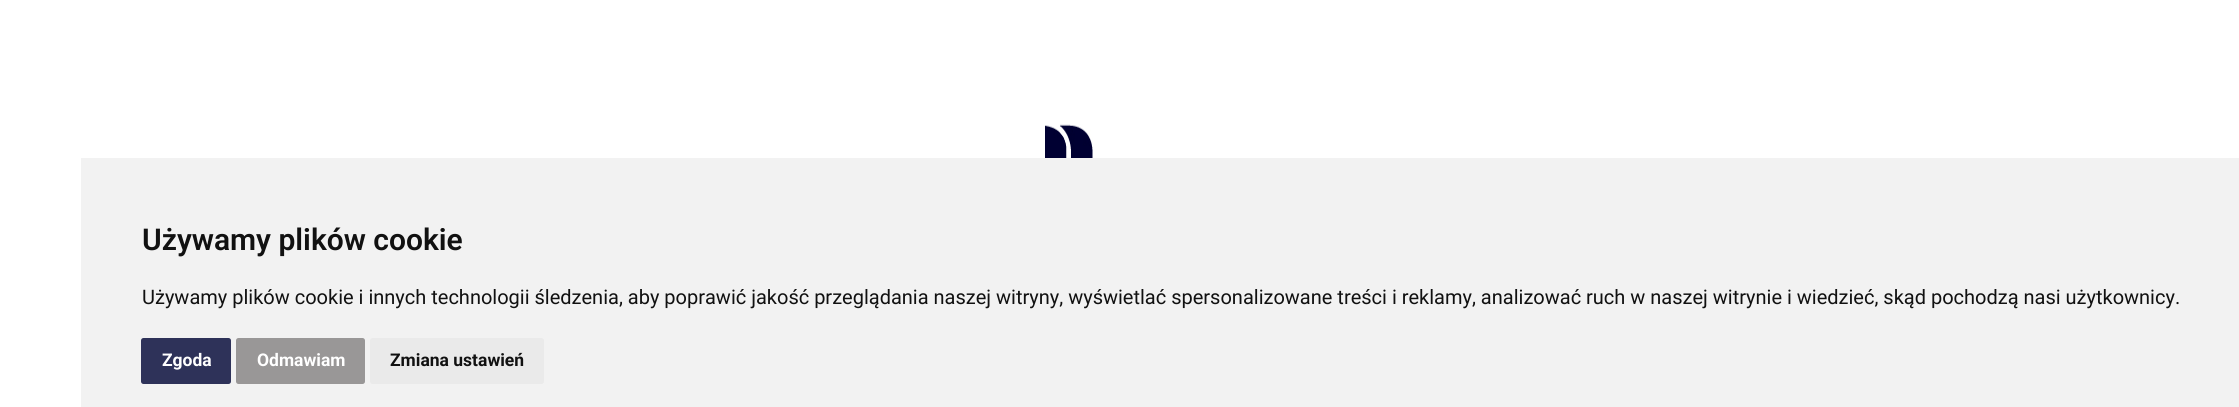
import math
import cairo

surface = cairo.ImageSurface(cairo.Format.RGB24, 2239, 407)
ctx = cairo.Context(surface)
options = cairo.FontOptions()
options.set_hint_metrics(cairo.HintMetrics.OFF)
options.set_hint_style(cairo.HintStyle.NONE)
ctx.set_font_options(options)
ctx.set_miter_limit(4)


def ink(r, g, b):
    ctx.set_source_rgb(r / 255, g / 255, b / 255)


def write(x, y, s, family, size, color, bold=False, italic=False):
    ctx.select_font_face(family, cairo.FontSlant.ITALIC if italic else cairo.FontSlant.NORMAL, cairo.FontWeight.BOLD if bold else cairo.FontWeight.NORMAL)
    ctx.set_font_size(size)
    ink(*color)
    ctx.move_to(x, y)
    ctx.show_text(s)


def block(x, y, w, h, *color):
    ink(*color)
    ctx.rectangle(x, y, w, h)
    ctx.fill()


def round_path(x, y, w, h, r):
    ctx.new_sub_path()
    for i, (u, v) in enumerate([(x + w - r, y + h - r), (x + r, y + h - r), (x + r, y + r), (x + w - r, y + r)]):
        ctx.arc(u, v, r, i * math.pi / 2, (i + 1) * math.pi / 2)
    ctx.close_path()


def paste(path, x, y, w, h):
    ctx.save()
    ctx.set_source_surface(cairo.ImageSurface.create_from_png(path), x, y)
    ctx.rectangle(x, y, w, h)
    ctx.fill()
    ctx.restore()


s1 = dict(family="Roboto SemiBold", size=30, color=(17, 17, 17))
s2 = dict(family="Roboto", size=20, color=(17, 17, 17))
s3 = dict(family="Roboto", size=17.5, color=(255, 255, 255), bold=True)
s4 = dict(family="Roboto", size=17.5, color=(17, 17, 17), bold=True)

ink(255, 255, 255)
ctx.paint()
paste("pic1.png", 1045, 125, 22, 33)
paste("pic2.png", 1059, 124, 34, 34)
block(81, 158, 2158, 249, 242, 242, 242)
write(142, 250, "Używamy plików cookie", **s1)
write(142, 304, "Używamy plików cookie i innych technologii śledzenia, aby poprawić jakość przeglądania naszej witryny, wyświetlać spersonalizowane treści i reklamy, analizować ruch w naszej witrynie i wiedzieć, skąd pochodzą nasi użytkownicy.", **s2)
ink(46, 50, 89)
round_path(141, 338, 90, 46, 2.5)
ctx.fill()
write(162, 366, "Zgoda", **s3)
ink(153, 151, 151)
round_path(236, 338, 129, 46, 2.5)
ctx.fill()
write(257, 366, "Odmawiam", **s3)
ink(234, 234, 234)
round_path(370, 338, 174, 46, 2.5)
ctx.fill()
write(390, 366, "Zmiana ustawień", **s4)
surface.write_to_png("screenshot.png")
